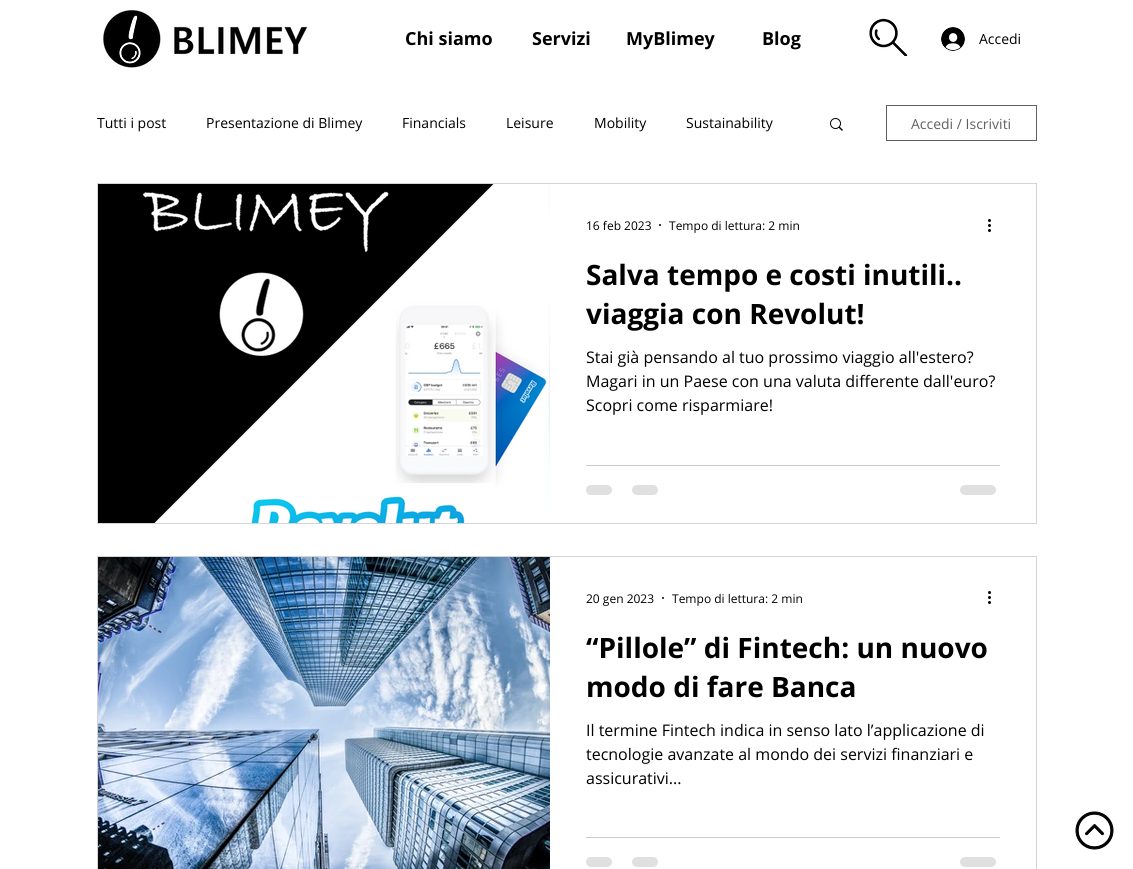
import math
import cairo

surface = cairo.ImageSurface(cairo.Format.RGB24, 1133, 869)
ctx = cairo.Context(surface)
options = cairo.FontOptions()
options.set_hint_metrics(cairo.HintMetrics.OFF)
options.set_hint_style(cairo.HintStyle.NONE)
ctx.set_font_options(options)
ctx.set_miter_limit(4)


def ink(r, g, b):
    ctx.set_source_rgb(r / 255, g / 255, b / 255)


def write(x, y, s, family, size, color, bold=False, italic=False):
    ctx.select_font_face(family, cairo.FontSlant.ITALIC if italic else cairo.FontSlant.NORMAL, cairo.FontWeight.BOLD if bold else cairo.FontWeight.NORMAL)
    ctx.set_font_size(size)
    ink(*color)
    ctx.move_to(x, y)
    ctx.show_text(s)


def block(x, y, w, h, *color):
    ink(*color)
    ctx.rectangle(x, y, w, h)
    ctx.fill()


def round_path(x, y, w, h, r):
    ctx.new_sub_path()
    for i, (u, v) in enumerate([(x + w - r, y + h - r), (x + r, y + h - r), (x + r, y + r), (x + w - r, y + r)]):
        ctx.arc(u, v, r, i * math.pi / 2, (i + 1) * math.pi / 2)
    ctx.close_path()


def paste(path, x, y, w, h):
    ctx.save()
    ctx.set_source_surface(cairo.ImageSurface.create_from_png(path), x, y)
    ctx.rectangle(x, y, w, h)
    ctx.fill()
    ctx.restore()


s1 = dict(family="Open Sans", size=18, color=(0, 0, 0), bold=True)
s2 = dict(family="Open Sans", size=14, color=(0, 0, 0))
s3 = dict(family="Open Sans", size=14, color=(96, 96, 96))
s4 = dict(family="Open Sans", size=12, color=(0, 0, 0))
s5 = dict(family="Open Sans", size=28, color=(0, 0, 0), bold=True)
s6 = dict(family="Open Sans", size=16, color=(0, 0, 0))

ink(255, 255, 255)
ctx.paint()
paste("pic1.png", 103, 10, 204, 58)
write(405, 45, "Chi siamo", **s1)
write(532, 45, "Servizi", **s1)
write(626, 45, "MyBlimey", **s1)
write(762, 45, "Blog", **s1)
paste("pic2.png", 869, 18, 39, 38)
paste("pic3.png", 941, 27, 24, 24)
write(979, 44, "Accedi", **s2)
write(97, 128, "Tutti i post", **s2)
write(206, 128, "Presentazione di Blimey", **s2)
write(402, 128, "Financials", **s2)
write(506, 128, "Leisure", **s2)
write(594, 128, "Mobility", **s2)
write(686, 128, "Sustainability", **s2)
paste("pic4.png", 830, 118, 13, 13)
ctx.rectangle(886.5, 105.5, 150, 35)
ink(96, 96, 96)
ctx.set_line_width(1)
ctx.stroke()
write(911, 129, "Accedi / Iscriviti", **s3)
ctx.rectangle(97.5, 183.5, 939, 340)
ink(212, 212, 212)
ctx.stroke()
paste("pic6.png", 546, 184, 4, 339)
paste("pic5.png", 98, 184, 451, 339)
write(586, 230, "16 feb 2023", **s4)
ctx.new_path()
ctx.arc(660, 225, 1, 0, 2 * math.pi)
ctx.fill()
write(669, 230, "Tempo di lettura: 2 min", **s4)
paste("pic7.png", 988, 219, 3, 13)
write(586, 285, "Salva tempo e costi inutili..", **s5)
write(586, 324, "viaggia con Revolut!", **s5)
write(586, 363, "Stai già pensando al tuo prossimo viaggio all'estero?", **s6)
write(586, 387, "Magari in un Paese con una valuta differente dall'euro?", **s6)
write(586, 411, "Scopri come risparmiare!", **s6)
block(586, 465, 414, 1, 204, 204, 204)
ink(224, 224, 224)
round_path(586, 485, 26, 10, 5)
ctx.fill()
round_path(632, 485, 26, 10, 5)
ctx.fill()
round_path(960, 485, 36, 10, 5)
ctx.fill()
ctx.rectangle(97.5, 556.5, 939, 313)
ink(212, 212, 212)
ctx.stroke()
paste("pic8.png", 98, 557, 452, 312)
write(586, 603, "20 gen 2023", **s4)
ctx.new_path()
ctx.arc(663, 598, 1, 0, 2 * math.pi)
ctx.fill()
write(672, 603, "Tempo di lettura: 2 min", **s4)
paste("pic7.png", 988, 591, 3, 13)
write(586, 658, "“Pillole” di Fintech: un nuovo", **s5)
write(586, 697, "modo di fare Banca", **s5)
write(586, 736, "Il termine Fintech indica in senso lato l’applicazione di", **s6)
write(586, 760, "tecnologie avanzate al mondo dei servizi finanziari e", **s6)
write(586, 784, "assicurativi...", **s6)
block(586, 837, 414, 1, 204, 204, 204)
ink(224, 224, 224)
round_path(586, 857, 26, 10, 5)
ctx.fill()
round_path(632, 857, 26, 10, 5)
ctx.fill()
round_path(960, 857, 36, 10, 5)
ctx.fill()
paste("pic9.png", 1075, 811, 39, 39)
surface.write_to_png("screenshot.png")
